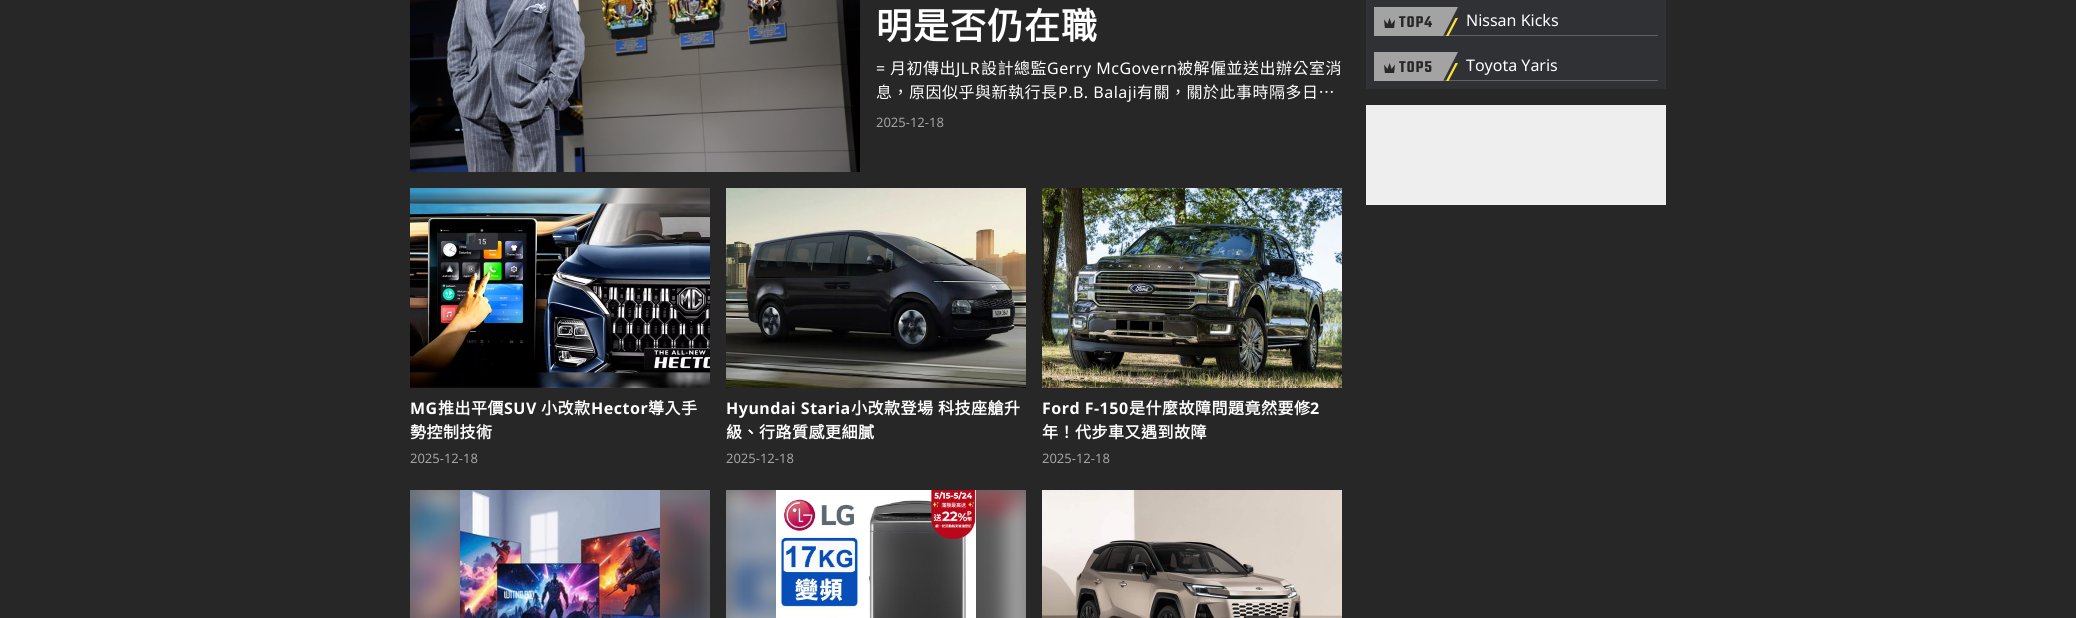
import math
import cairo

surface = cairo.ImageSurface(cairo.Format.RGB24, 2076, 618)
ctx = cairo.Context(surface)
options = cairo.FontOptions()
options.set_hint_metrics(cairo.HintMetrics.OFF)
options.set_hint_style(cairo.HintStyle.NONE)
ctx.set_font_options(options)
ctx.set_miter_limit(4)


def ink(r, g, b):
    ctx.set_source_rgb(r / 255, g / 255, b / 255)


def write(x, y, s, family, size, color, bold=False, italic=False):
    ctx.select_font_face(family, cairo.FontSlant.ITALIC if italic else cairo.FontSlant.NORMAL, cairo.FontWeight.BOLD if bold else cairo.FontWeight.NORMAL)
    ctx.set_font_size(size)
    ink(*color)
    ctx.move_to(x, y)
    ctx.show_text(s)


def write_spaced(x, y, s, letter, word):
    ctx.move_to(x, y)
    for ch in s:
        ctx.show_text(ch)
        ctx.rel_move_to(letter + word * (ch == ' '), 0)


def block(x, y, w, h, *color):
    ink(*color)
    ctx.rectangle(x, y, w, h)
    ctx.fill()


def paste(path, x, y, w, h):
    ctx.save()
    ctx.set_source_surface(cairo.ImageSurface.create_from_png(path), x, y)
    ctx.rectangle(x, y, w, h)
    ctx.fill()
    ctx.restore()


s1 = dict(family="Noto Sans", size=13, color=(163, 163, 163))
s2 = dict(family="Noto Sans", size=16, color=(255, 255, 255))

ink(39, 39, 39)
ctx.paint()
paste("pic1.png", 410, 0, 450, 172)
ctx.select_font_face("Noto Sans CJK TC", cairo.FontSlant.NORMAL, cairo.FontWeight.BOLD)
ctx.set_font_size(36)
ink(255, 255, 255)
write_spaced(876, 39, "明是否仍在職", 1, 0)
ctx.select_font_face("Noto Sans")
ctx.set_font_size(16)
write_spaced(876, 74, "=", 0.5, 0)
ctx.select_font_face("Noto Sans CJK TC")
write_spaced(890, 74, "月初傳出", 0.5, 0)
ctx.select_font_face("Noto Sans")
write_spaced(956, 74, "JLR", 0.5, 0)
ctx.select_font_face("Noto Sans CJK TC")
write_spaced(981, 74, "設計總監", 0.5, 0)
ctx.select_font_face("Noto Sans")
write_spaced(1047, 74, "Gerry McGovern", 0.5, 0)
ctx.select_font_face("Noto Sans CJK TC")
write_spaced(1177, 74, "被解僱並送出辦公室消", 0.5, 0)
write_spaced(876, 98, "息，原因似乎與新執行長", 0.5, 0)
ctx.select_font_face("Noto Sans")
write_spaced(1058, 98, "P.B. Balaji", 0.5, 0)
ctx.select_font_face("Noto Sans CJK TC")
write_spaced(1137, 98, "有關，關於此事時隔多日…", 0.5, 0)
write(876, 127, "2025-12-18", **s1)
paste("pic2.png", 410, 188, 300, 200)
ctx.select_font_face("Noto Sans", cairo.FontSlant.NORMAL, cairo.FontWeight.BOLD)
ctx.set_font_size(16)
ink(255, 255, 255)
write_spaced(410, 414, "MG", 0.5, 0)
ctx.select_font_face("Noto Sans CJK TC", cairo.FontSlant.NORMAL, cairo.FontWeight.BOLD)
write_spaced(438, 414, "推出平價", 0.5, 0)
ctx.select_font_face("Noto Sans", cairo.FontSlant.NORMAL, cairo.FontWeight.BOLD)
write_spaced(504, 414, "SUV", 0.5, 0)
ctx.select_font_face("Noto Sans CJK TC", cairo.FontSlant.NORMAL, cairo.FontWeight.BOLD)
write_spaced(541, 414, "小改款", 0.5, 0)
ctx.select_font_face("Noto Sans", cairo.FontSlant.NORMAL, cairo.FontWeight.BOLD)
write_spaced(591, 414, "Hector", 0.5, 0)
ctx.select_font_face("Noto Sans CJK TC", cairo.FontSlant.NORMAL, cairo.FontWeight.BOLD)
write_spaced(648, 414, "導入手", 0.5, 0)
write_spaced(410, 438, "勢控制技術", 0.5, 0)
write(410, 463, "2025-12-18", **s1)
paste("pic3.png", 726, 188, 300, 200)
ctx.select_font_face("Noto Sans", cairo.FontSlant.NORMAL, cairo.FontWeight.BOLD)
ctx.set_font_size(16)
ink(255, 255, 255)
write_spaced(726, 414, "Hyundai Staria", 0.5, 0)
ctx.select_font_face("Noto Sans CJK TC", cairo.FontSlant.NORMAL, cairo.FontWeight.BOLD)
write_spaced(851, 414, "小改款登場", 0.5, 0)
write_spaced(938, 414, "科技座艙升", 0.5, 0)
write_spaced(726, 438, "級、行路質感更細膩", 0.5, 0)
write(726, 463, "2025-12-18", **s1)
paste("pic4.png", 1042, 188, 300, 200)
ctx.select_font_face("Noto Sans", cairo.FontSlant.NORMAL, cairo.FontWeight.BOLD)
ctx.set_font_size(16)
ink(255, 255, 255)
write_spaced(1042, 414, "Ford F-150", 0.5, 0)
ctx.select_font_face("Noto Sans CJK TC", cairo.FontSlant.NORMAL, cairo.FontWeight.BOLD)
write_spaced(1129, 414, "是什麼故障問題竟然要修", 0.5, 0)
ctx.select_font_face("Noto Sans", cairo.FontSlant.NORMAL, cairo.FontWeight.BOLD)
write_spaced(1310, 414, "2", 0.5, 0)
ctx.select_font_face("Noto Sans CJK TC", cairo.FontSlant.NORMAL, cairo.FontWeight.BOLD)
write_spaced(1042, 438, "年！代步車又遇到故障", 0.5, 0)
write(1042, 463, "2025-12-18", **s1)
block(410, 490, 300, 128, 106, 106, 106)
paste("pic5.png", 410, 490, 300, 128)
paste("pic6.png", 460, 490, 200, 128)
block(726, 490, 300, 128, 106, 106, 106)
paste("pic7.png", 726, 490, 300, 128)
paste("pic8.png", 776, 490, 200, 128)
paste("pic9.png", 1042, 490, 300, 128)
block(1366, 0, 300, 89, 48, 49, 53)
block(1443, 35, 215, 1, 98, 98, 98)
paste("pic10.png", 1374, 7, 84, 29)
write(1466, 26, "Nissan Kicks", **s2)
block(1443, 80, 215, 1, 98, 98, 98)
paste("pic11.png", 1374, 52, 84, 29)
write(1466, 71, "Toyota Yaris", **s2)
block(1366, 105, 300, 100, 238, 238, 238)
surface.write_to_png("screenshot.png")
